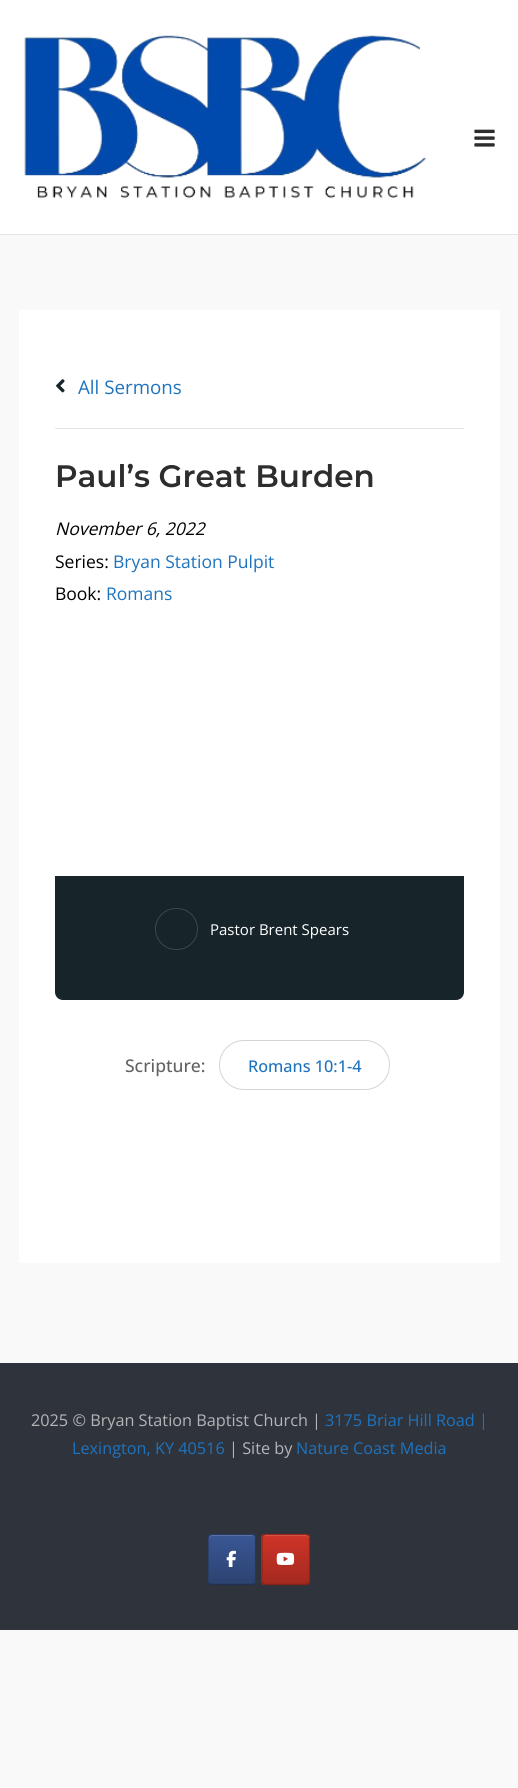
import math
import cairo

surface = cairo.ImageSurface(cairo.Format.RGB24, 518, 1788)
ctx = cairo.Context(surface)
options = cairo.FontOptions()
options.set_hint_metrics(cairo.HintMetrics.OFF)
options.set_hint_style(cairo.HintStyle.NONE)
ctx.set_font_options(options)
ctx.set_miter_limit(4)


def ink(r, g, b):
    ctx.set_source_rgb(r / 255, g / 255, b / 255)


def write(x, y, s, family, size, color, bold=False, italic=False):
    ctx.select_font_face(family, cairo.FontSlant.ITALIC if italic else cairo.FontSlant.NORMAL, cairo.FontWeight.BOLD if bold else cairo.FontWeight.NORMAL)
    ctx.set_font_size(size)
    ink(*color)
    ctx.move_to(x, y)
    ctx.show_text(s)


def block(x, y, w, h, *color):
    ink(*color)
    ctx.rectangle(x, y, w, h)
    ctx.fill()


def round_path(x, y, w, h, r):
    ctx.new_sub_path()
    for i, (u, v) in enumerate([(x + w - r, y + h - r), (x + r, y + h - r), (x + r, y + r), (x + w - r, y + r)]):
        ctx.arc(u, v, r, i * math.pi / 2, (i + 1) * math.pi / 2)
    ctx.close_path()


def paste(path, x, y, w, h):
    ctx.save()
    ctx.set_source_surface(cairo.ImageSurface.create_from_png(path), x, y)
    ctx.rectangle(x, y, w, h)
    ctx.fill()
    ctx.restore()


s1 = dict(family="Open Sans", size=18.75, color=(30, 115, 190))
s2 = dict(family="Montserrat SemiBold", size=31, color=(45, 45, 45))
s3 = dict(family="Open Sans", size=17.5, color=(0, 0, 0), italic=True)
s4 = dict(family="Open Sans", size=17.5, color=(0, 0, 0))
s5 = dict(family="Open Sans", size=17.5, color=(30, 115, 190))
s6 = dict(family="Open Sans", size=15, color=(255, 255, 255))
s7 = dict(family="Open Sans Medium", size=17.5, color=(98, 98, 98))
s8 = dict(family="Open Sans Medium", size=16.25, color=(30, 115, 190))
s9 = dict(family="Open Sans", size=16.25, color=(180, 181, 184))
s10 = dict(family="Open Sans", size=16.25, color=(30, 115, 190))

ink(249, 249, 249)
ctx.paint()
block(0, 0, 518, 234, 255, 255, 255)
block(0, 234, 518, 1, 230, 230, 230)
paste("pic1.png", 24, 35, 402, 164)
paste("pic2.png", 474, 129, 21, 18)
block(19, 310, 481, 953, 255, 255, 255)
block(55, 428, 409, 1, 233, 229, 222)
paste("pic3.png", 56, 379, 9, 14)
write(78, 394, "All Sermons", **s1)
write(55, 487, "Paul’s Great Burden", **s2)
write(55, 535, "November 6, 2022", **s3)
write(55, 568, "Series:", **s4)
write(113, 568, "Bryan Station Pulpit", **s5)
write(55, 600, "Book:", **s4)
write(106, 600, "Romans", **s5)
ink(23, 36, 42)
ctx.new_path()
ctx.move_to(55, 876)
ctx.line_to(464, 876)
ctx.line_to(464, 992)
ctx.curve_to(464, 996.5, 460.5, 1000, 456, 1000)
ctx.line_to(63, 1000)
ctx.curve_to(58.5, 1000, 55, 996.5, 55, 992)
ctx.close_path()
ctx.fill()
round_path(155.5, 908.5, 42, 41, 20.5)
ink(60, 71, 76)
ctx.set_line_width(1)
ctx.stroke()
write(210, 935, "Pastor Brent Spears", **s6)
write(125, 1072, "Scripture:", **s7)
round_path(219.5, 1040.5, 170, 49, 24.5)
ink(213, 213, 213)
ctx.stroke()
write(248, 1072, "Romans 10:1-4", **s8)
block(0, 1363, 518, 267, 47, 51, 59)
write(31, 1426, "2025 © Bryan Station Baptist Church |", **s9)
write(325, 1426, "3175 Briar Hill Road |", **s10)
write(72, 1454, "Lexington, KY 40516", **s10)
write(229, 1454, "| Site by", **s9)
write(296, 1454, "Nature Coast Media", **s10)
ctx.save()
round_path(208, 1534, 48, 51, 4)
ctx.clip()
gradient = cairo.LinearGradient(209, 1535, 209, 1486)
gradient.add_color_stop_rgba(0, 0.173, 0.259, 0.439, 1)
gradient.add_color_stop_rgba(1, 0.227, 0.341, 0.584, 1)
ctx.set_source(gradient)
ctx.rectangle(208, 1534, 48, 1)
ctx.fill()
gradient = cairo.LinearGradient(209, 1584, 209, 1535)
gradient.add_color_stop_rgba(0, 0.173, 0.259, 0.439, 1)
gradient.add_color_stop_rgba(1, 0.227, 0.341, 0.584, 1)
ctx.set_source(gradient)
ctx.rectangle(208, 1535, 48, 49)
ctx.fill()
ctx.restore()
ink(97, 121, 170)
ctx.new_path()
ctx.move_to(212, 1536)
ctx.line_to(252, 1536)
ctx.curve_to(254, 1536, 255, 1538, 255, 1539)
ctx.curve_to(255, 1533, 251, 1535, 246, 1535)
ctx.line_to(218, 1535)
ctx.curve_to(213, 1535, 209, 1533, 209, 1539)
ctx.curve_to(209, 1538, 210, 1536, 212, 1536)
ctx.close_path()
ctx.fill()
ctx.new_path()
ctx.move_to(209, 1535.5)
ctx.line_to(211.5, 1534.5)
ctx.line_to(252, 1534.5)
ctx.line_to(254.5, 1535.5)
ink(39, 59, 101)
ctx.set_line_width(1.2)
ctx.stroke()
ctx.new_path()
ctx.move_to(254.5, 1535.5)
ctx.line_to(255.5, 1538)
ctx.line_to(255.5, 1581)
ctx.line_to(254.5, 1583.5)
ink(37, 55, 94)
ctx.stroke()
ctx.new_path()
ctx.move_to(254.5, 1583.5)
ctx.line_to(252, 1584.5)
ctx.line_to(211.5, 1584.5)
ctx.line_to(209, 1583.5)
ink(32, 48, 83)
ctx.stroke()
ctx.new_path()
ctx.move_to(209, 1583.5)
ctx.line_to(208, 1581)
ctx.line_to(208, 1538)
ctx.line_to(209, 1535.5)
ink(37, 55, 94)
ctx.stroke()
paste("pic4.png", 226, 1550, 10, 17)
ctx.save()
round_path(261, 1534, 49, 51, 4)
ctx.clip()
gradient = cairo.LinearGradient(263, 1535, 263, 1486)
gradient.add_color_stop_rgba(0, 0.643, 0.161, 0.122, 1)
gradient.add_color_stop_rgba(1, 0.812, 0.204, 0.153, 1)
ctx.set_source(gradient)
ctx.rectangle(261, 1534, 49, 1)
ctx.fill()
gradient = cairo.LinearGradient(263, 1584, 263, 1535)
gradient.add_color_stop_rgba(0, 0.643, 0.161, 0.122, 1)
gradient.add_color_stop_rgba(1, 0.812, 0.204, 0.153, 1)
ctx.set_source(gradient)
ctx.rectangle(261, 1535, 49, 49)
ctx.fill()
gradient = cairo.LinearGradient(263, 1633, 263, 1584)
gradient.add_color_stop_rgba(0, 0.643, 0.161, 0.122, 1)
gradient.add_color_stop_rgba(1, 0.812, 0.204, 0.153, 1)
ctx.set_source(gradient)
ctx.rectangle(261, 1584, 49, 1)
ctx.fill()
ctx.restore()
ink(217, 93, 82)
ctx.new_path()
ctx.move_to(265, 1536)
ctx.line_to(306, 1536)
ctx.curve_to(307, 1536, 309, 1538, 309, 1539)
ctx.line_to(309, 1538)
ctx.curve_to(309, 1536, 308, 1535, 306, 1535)
ctx.line_to(266, 1535)
ctx.curve_to(264, 1535, 263, 1536, 263, 1537)
ctx.close_path()
ctx.fill()
ctx.new_path()
ctx.move_to(263, 1535.5)
ctx.line_to(265.5, 1534.5)
ctx.line_to(306, 1534.5)
ctx.line_to(308.5, 1535.5)
ink(151, 38, 28)
ctx.stroke()
ctx.new_path()
ctx.move_to(308.5, 1535.5)
ctx.line_to(309.5, 1538)
ctx.line_to(309.5, 1581)
ctx.line_to(308.5, 1583.5)
ink(143, 36, 27)
ctx.stroke()
ctx.new_path()
ctx.move_to(308.5, 1583.5)
ctx.line_to(306, 1584.5)
ctx.line_to(265.5, 1584.5)
ctx.line_to(263, 1583.5)
ink(130, 33, 24)
ctx.stroke()
ctx.new_path()
ctx.move_to(263, 1583.5)
ctx.line_to(262, 1581)
ctx.line_to(262, 1538)
ctx.line_to(263, 1535.5)
ink(143, 36, 27)
ctx.stroke()
paste("pic5.png", 276, 1552, 19, 13)
surface.write_to_png("screenshot.png")
